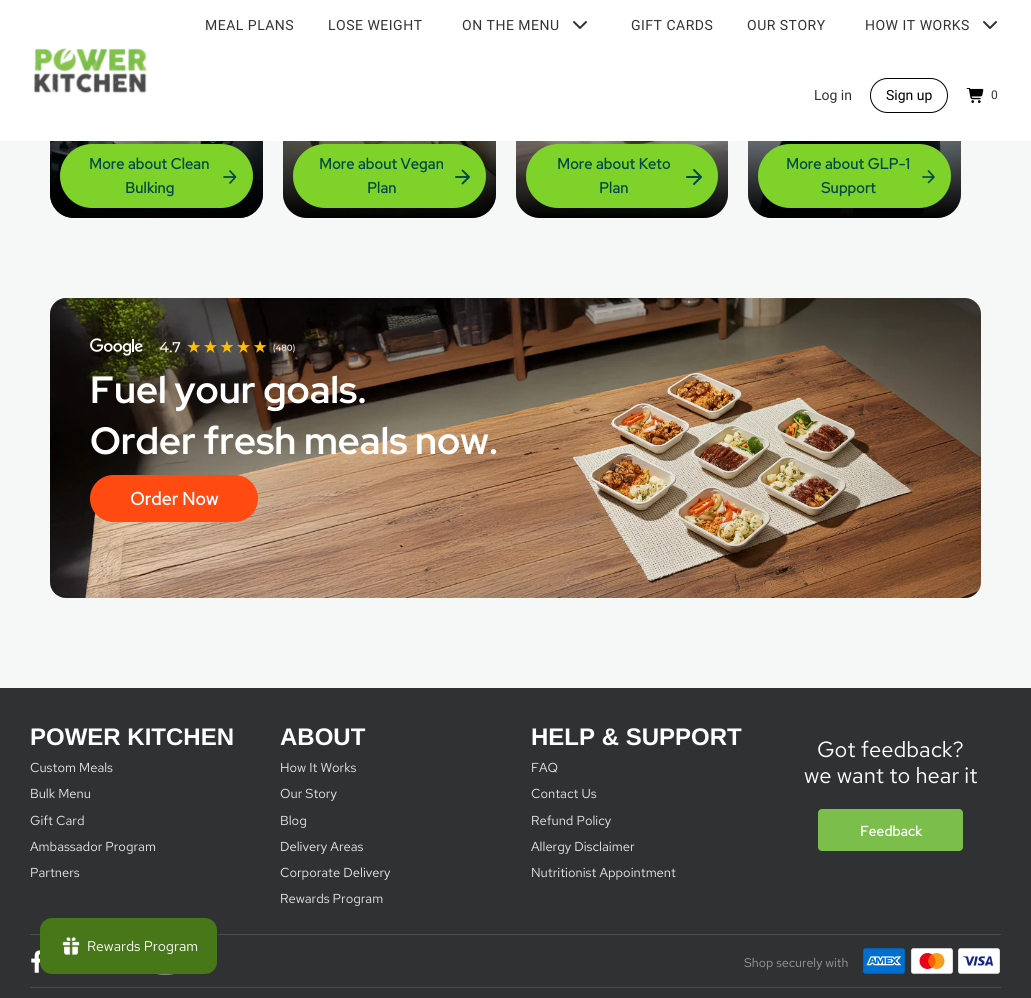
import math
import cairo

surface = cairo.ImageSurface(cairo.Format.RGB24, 1031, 998)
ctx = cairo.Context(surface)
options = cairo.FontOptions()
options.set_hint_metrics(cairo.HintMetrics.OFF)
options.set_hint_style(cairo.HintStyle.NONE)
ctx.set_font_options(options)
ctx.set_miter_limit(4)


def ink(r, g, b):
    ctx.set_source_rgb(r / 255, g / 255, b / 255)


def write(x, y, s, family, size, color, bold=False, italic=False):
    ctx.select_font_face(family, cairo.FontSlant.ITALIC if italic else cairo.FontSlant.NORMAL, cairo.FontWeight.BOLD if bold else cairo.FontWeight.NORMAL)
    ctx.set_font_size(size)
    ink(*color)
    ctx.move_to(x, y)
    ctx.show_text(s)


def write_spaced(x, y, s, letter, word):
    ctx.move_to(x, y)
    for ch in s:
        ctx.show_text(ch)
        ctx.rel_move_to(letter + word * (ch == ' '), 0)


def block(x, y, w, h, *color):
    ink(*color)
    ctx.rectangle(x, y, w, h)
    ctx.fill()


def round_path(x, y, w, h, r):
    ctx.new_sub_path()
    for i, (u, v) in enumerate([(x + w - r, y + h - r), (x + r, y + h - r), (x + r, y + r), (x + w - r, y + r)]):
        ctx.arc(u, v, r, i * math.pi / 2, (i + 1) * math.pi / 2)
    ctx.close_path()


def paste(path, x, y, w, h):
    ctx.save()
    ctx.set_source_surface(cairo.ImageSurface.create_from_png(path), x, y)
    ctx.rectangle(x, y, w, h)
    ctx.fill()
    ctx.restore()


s1 = dict(family="Roboto", size=14, color=(51, 51, 51))
s2 = dict(family="Roboto", size=14, color=(0, 0, 0))
s3 = dict(family="Roboto", size=12, color=(51, 51, 51))
s4 = dict(family="Red Hat Text", size=15, color=(0, 73, 69), bold=True)
s5 = dict(family="Red Hat Display", size=38, color=(255, 255, 255), bold=True)
s6 = dict(family="Red Hat Text", size=18, color=(255, 255, 255), bold=True)
s7 = dict(family="Liberation Sans", size=24, color=(255, 255, 255), bold=True)
s8 = dict(family="Red Hat Text", size=13, color=(230, 230, 230))
s9 = dict(family="Red Hat Text", size=22, color=(255, 255, 255))
s10 = dict(family="Red Hat Text", size=14, color=(255, 255, 255), bold=True)
s11 = dict(family="Red Hat Text", size=12.5, color=(153, 153, 153))
s12 = dict(family="Red Hat Text", size=14, color=(255, 255, 255))

ink(246, 248, 248)
ctx.paint()
paste("pic3.png", 50, 141, 213, 77)
gradient = cairo.LinearGradient(156, -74, 157, 218)
gradient.add_color_stop_rgba(0.52, 0, 0, 0, 0)
gradient.add_color_stop_rgba(1, 0, 0, 0, 1)
ctx.set_source(gradient)
round_path(50, -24, 213, 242, 24)
ctx.fill()
paste("pic4.png", 283, 141, 213, 77)
gradient = cairo.LinearGradient(390, -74, 390, 218)
gradient.add_color_stop_rgba(0.52, 0, 0, 0, 0)
gradient.add_color_stop_rgba(1, 0, 0, 0, 1)
ctx.set_source(gradient)
round_path(283, -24, 213, 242, 24)
ctx.fill()
paste("pic5.png", 516, 141, 212, 77)
gradient = cairo.LinearGradient(622, -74, 622, 218)
gradient.add_color_stop_rgba(0.52, 0, 0, 0, 0)
gradient.add_color_stop_rgba(1, 0, 0, 0, 1)
ctx.set_source(gradient)
round_path(516, -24, 212, 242, 24)
ctx.fill()
paste("pic6.png", 748, 141, 213, 77)
gradient = cairo.LinearGradient(855, -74, 855, 218)
gradient.add_color_stop_rgba(0.52, 0, 0, 0, 0)
gradient.add_color_stop_rgba(1, 0, 0, 0, 1)
ctx.set_source(gradient)
round_path(748, -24, 213, 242, 24)
ctx.fill()
block(0, 0, 1031, 141, 255, 255, 255)
paste("pic1.png", 34, 48, 113, 46)
ctx.select_font_face("Roboto")
ctx.set_font_size(14)
ink(51, 51, 51)
write_spaced(205, 30, "MEAL PLANS", 0.5, 0)
write_spaced(328, 30, "LOSE WEIGHT", 0.5, 0)
write_spaced(462, 30, "ON THE MENU", 0.5, 0)
ctx.new_path()
ctx.move_to(574, 22)
ctx.line_to(580, 28)
ctx.line_to(586, 22)
ctx.set_line_cap(cairo.LineCap.ROUND)
ctx.set_line_join(cairo.LineJoin.ROUND)
ctx.stroke()
write_spaced(631, 30, "GIFT CARDS", 0.5, 0)
write_spaced(747, 30, "OUR STORY", 0.5, 0)
write_spaced(865, 30, "HOW IT WORKS", 0.5, 0)
ctx.new_path()
ctx.move_to(984, 22)
ctx.line_to(990, 28)
ctx.line_to(996, 22)
ctx.stroke()
write(814, 100, "Log in", **s1)
round_path(870.5, 78.5, 77, 34, 17)
ink(0, 0, 0)
ctx.set_line_width(1)
ctx.set_line_cap(cairo.LineCap.BUTT)
ctx.set_line_join(cairo.LineJoin.MITER)
ctx.stroke()
write(886, 100, "Sign up", **s2)
paste("pic2.png", 966, 88, 18, 15)
write(991, 99, "0", **s3)
ink(126, 210, 42)
round_path(60, 144, 193, 64, 32)
ctx.fill()
write(89, 169, "More about Clean", **s4)
ctx.new_path()
ctx.move_to(224, 177)
ctx.line_to(235.5, 177)
ctx.move_to(235.5, 177)
ctx.line_to(230, 171)
ctx.move_to(235.5, 177)
ctx.line_to(230, 183)
ctx.set_line_width(1.7)
ctx.set_line_cap(cairo.LineCap.ROUND)
ctx.set_line_join(cairo.LineJoin.ROUND)
ctx.stroke()
write(125, 193, "Bulking", **s4)
ink(126, 210, 42)
round_path(293, 144, 193, 64, 32)
ctx.fill()
write(319, 169, "More about Vegan", **s4)
ctx.new_path()
ctx.move_to(456, 177)
ctx.line_to(469, 177)
ctx.move_to(469, 177)
ctx.line_to(462.5, 170.5)
ctx.move_to(469, 177)
ctx.line_to(462.5, 183.5)
ctx.set_line_width(1.9)
ctx.stroke()
write(367, 193, "Plan", **s4)
ink(126, 210, 42)
round_path(526, 144, 192, 64, 32)
ctx.fill()
write(557, 169, "More about Keto", **s4)
ctx.new_path()
ctx.move_to(687, 177)
ctx.line_to(701, 177)
ctx.move_to(701, 177)
ctx.line_to(694, 170)
ctx.move_to(701, 177)
ctx.line_to(694, 184)
ctx.set_line_width(2)
ctx.stroke()
write(599, 193, "Plan", **s4)
ink(126, 210, 42)
round_path(758, 144, 193, 64, 32)
ctx.fill()
write(786, 169, "More about GLP-1", **s4)
ctx.new_path()
ctx.move_to(923, 177)
ctx.line_to(934, 177)
ctx.move_to(934, 177)
ctx.line_to(928.5, 171)
ctx.move_to(934, 177)
ctx.line_to(928.5, 182.5)
ctx.set_line_width(1.6)
ctx.stroke()
write(821, 193, "Support", **s4)
paste("pic7.png", 50, 298, 931, 300)
paste("pic8.png", 90, 338, 205, 18)
write(90, 403, "Fuel your goals.", **s5)
write(90, 454, "Order fresh meals now.", **s5)
ink(255, 74, 18)
round_path(90, 475, 168, 47, 23.5)
ctx.fill()
write(130, 505, "Order Now", **s6)
block(0, 688, 1031, 310, 48, 49, 51)
write(30, 745, "POWER KITCHEN", **s7)
write(30, 772, "Custom Meals", **s8)
write(30, 798, "Bulk Menu", **s8)
write(30, 825, "Gift Card", **s8)
write(30, 851, "Ambassador Program", **s8)
write(30, 877, "Partners", **s8)
write(280, 745, "ABOUT", **s7)
write(280, 772, "How It Works", **s8)
write(280, 798, "Our Story", **s8)
write(280, 825, "Blog", **s8)
write(280, 851, "Delivery Areas", **s8)
write(280, 877, "Corporate Delivery", **s8)
write(280, 903, "Rewards Program", **s8)
write(531, 745, "HELP & SUPPORT", **s7)
write(531, 772, "FAQ", **s8)
write(531, 798, "Contact Us", **s8)
write(531, 825, "Refund Policy", **s8)
write(531, 851, "Allergy Disclaimer", **s8)
write(531, 877, "Nutritionist Appointment", **s8)
write(817, 757, "Got feedback?", **s9)
write(804, 783, "we want to hear it", **s9)
ink(123, 190, 75)
round_path(818, 809, 145, 42, 4)
ctx.fill()
write(860, 836, "Feedback", **s10)
block(30, 934, 971, 1, 75, 75, 75)
block(30, 987, 971, 1, 75, 75, 75)
paste("pic9.png", 31, 950, 10, 23)
paste("pic10.png", 157, 974, 16, 1)
write(744, 967, "Shop securely with", **s11)
paste("pic11.png", 863, 948, 42, 26)
paste("pic12.png", 911, 948, 42, 26)
paste("pic13.png", 958, 948, 42, 26)
ink(71, 119, 24)
round_path(40, 918, 177, 56, 12)
ctx.fill()
paste("pic14.png", 62, 937, 18, 18)
write(87, 951, "Rewards Program", **s12)
surface.write_to_png("screenshot.png")
